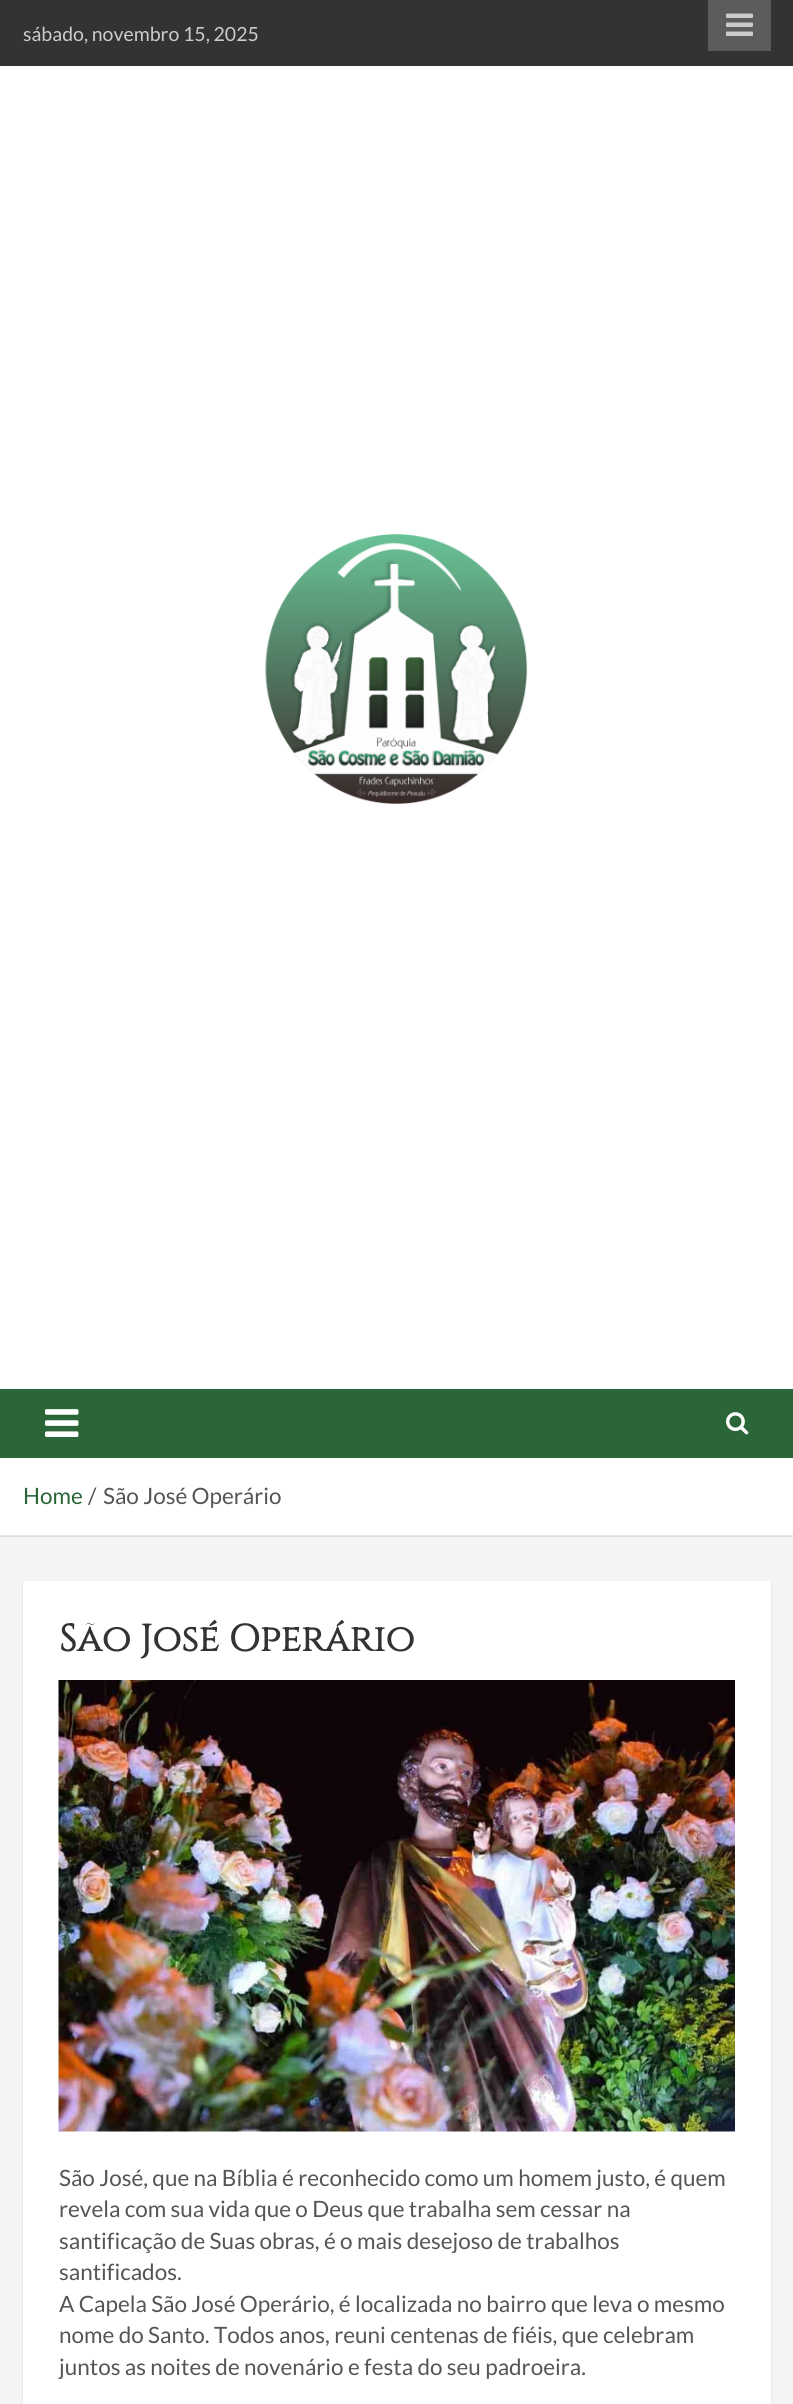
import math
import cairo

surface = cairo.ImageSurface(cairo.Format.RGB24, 793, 2404)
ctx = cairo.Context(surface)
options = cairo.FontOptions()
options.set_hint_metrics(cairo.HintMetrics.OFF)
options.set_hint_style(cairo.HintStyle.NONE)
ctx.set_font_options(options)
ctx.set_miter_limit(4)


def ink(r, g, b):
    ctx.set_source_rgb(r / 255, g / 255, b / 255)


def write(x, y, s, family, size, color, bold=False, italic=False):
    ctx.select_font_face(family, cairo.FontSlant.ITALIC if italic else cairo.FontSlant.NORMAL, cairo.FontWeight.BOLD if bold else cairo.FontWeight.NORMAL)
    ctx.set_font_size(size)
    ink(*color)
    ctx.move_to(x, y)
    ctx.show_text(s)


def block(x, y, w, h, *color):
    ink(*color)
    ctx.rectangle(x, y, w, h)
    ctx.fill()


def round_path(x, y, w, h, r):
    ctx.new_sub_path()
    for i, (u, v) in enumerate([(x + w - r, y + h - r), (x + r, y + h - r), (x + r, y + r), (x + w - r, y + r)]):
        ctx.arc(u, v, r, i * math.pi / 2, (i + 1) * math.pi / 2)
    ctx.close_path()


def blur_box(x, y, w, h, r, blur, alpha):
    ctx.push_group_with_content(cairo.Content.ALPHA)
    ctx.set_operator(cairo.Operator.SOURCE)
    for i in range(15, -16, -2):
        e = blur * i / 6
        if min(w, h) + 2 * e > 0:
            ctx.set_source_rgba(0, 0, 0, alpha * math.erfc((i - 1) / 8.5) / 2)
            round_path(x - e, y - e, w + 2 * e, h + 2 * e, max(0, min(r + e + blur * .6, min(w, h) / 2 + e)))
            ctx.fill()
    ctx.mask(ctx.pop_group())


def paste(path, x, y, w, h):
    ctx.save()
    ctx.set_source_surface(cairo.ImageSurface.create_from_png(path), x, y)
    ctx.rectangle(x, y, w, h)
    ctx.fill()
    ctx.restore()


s1 = dict(family="Lato", size=19.5, color=(204, 204, 204))
s2 = dict(family="Lato", size=22.5, color=(42, 102, 55))
s3 = dict(family="Lato", size=22.5, color=(85, 85, 85))
s4 = dict(family="Cinzel", size=37.5, color=(51, 51, 51), bold=True)

ink(244, 244, 244)
ctx.paint()
block(0, 1536, 793, 1, 220, 220, 220)
block(0, 0, 793, 66, 51, 51, 51)
write(23, 41, "sábado, novembro 15, 2025", **s1)
block(708, 0, 63, 51, 92, 92, 92)
paste("pic1.png", 726, 13, 27, 23)
block(0, 66, 793, 1323, 255, 255, 255)
paste("pic2.png", 265, 534, 263, 270)
block(0, 1389, 793, 69, 42, 102, 55)
paste("pic3.png", 45, 1409, 34, 28)
paste("pic4.png", 726, 1412, 23, 23)
block(0, 1458, 793, 77, 255, 255, 255)
block(0, 1535, 793, 1, 230, 230, 230)
write(23, 1504, "Home", **s2)
write(88, 1504, "/", **s3)
write(103, 1504, "São José Operário", **s3)
ink(0, 0, 0)
blur_box(23, 1583, 748, 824, 0, 1, 0.1)
block(23, 1581, 748, 823, 255, 255, 255)
write(59, 1651, "São José Operário", **s4)
paste("pic5.png", 58, 1680, 677, 452)
write(59, 2186, "São José, que na Bíblia é reconhecido como um homem justo, é quem", **s3)
write(59, 2217, "revela com sua vida que o Deus que trabalha sem cessar na", **s3)
write(59, 2249, "santificação de Suas obras, é o mais desejoso de trabalhos", **s3)
write(59, 2280, "santificados.", **s3)
write(59, 2312, "A Capela São José Operário, é localizada no bairro que leva o mesmo", **s3)
write(59, 2343, "nome do Santo. Todos anos, reuni centenas de fiéis, que celebram", **s3)
write(59, 2375, "juntos as noites de novenário e festa do seu padroeira.", **s3)
surface.write_to_png("screenshot.png")
